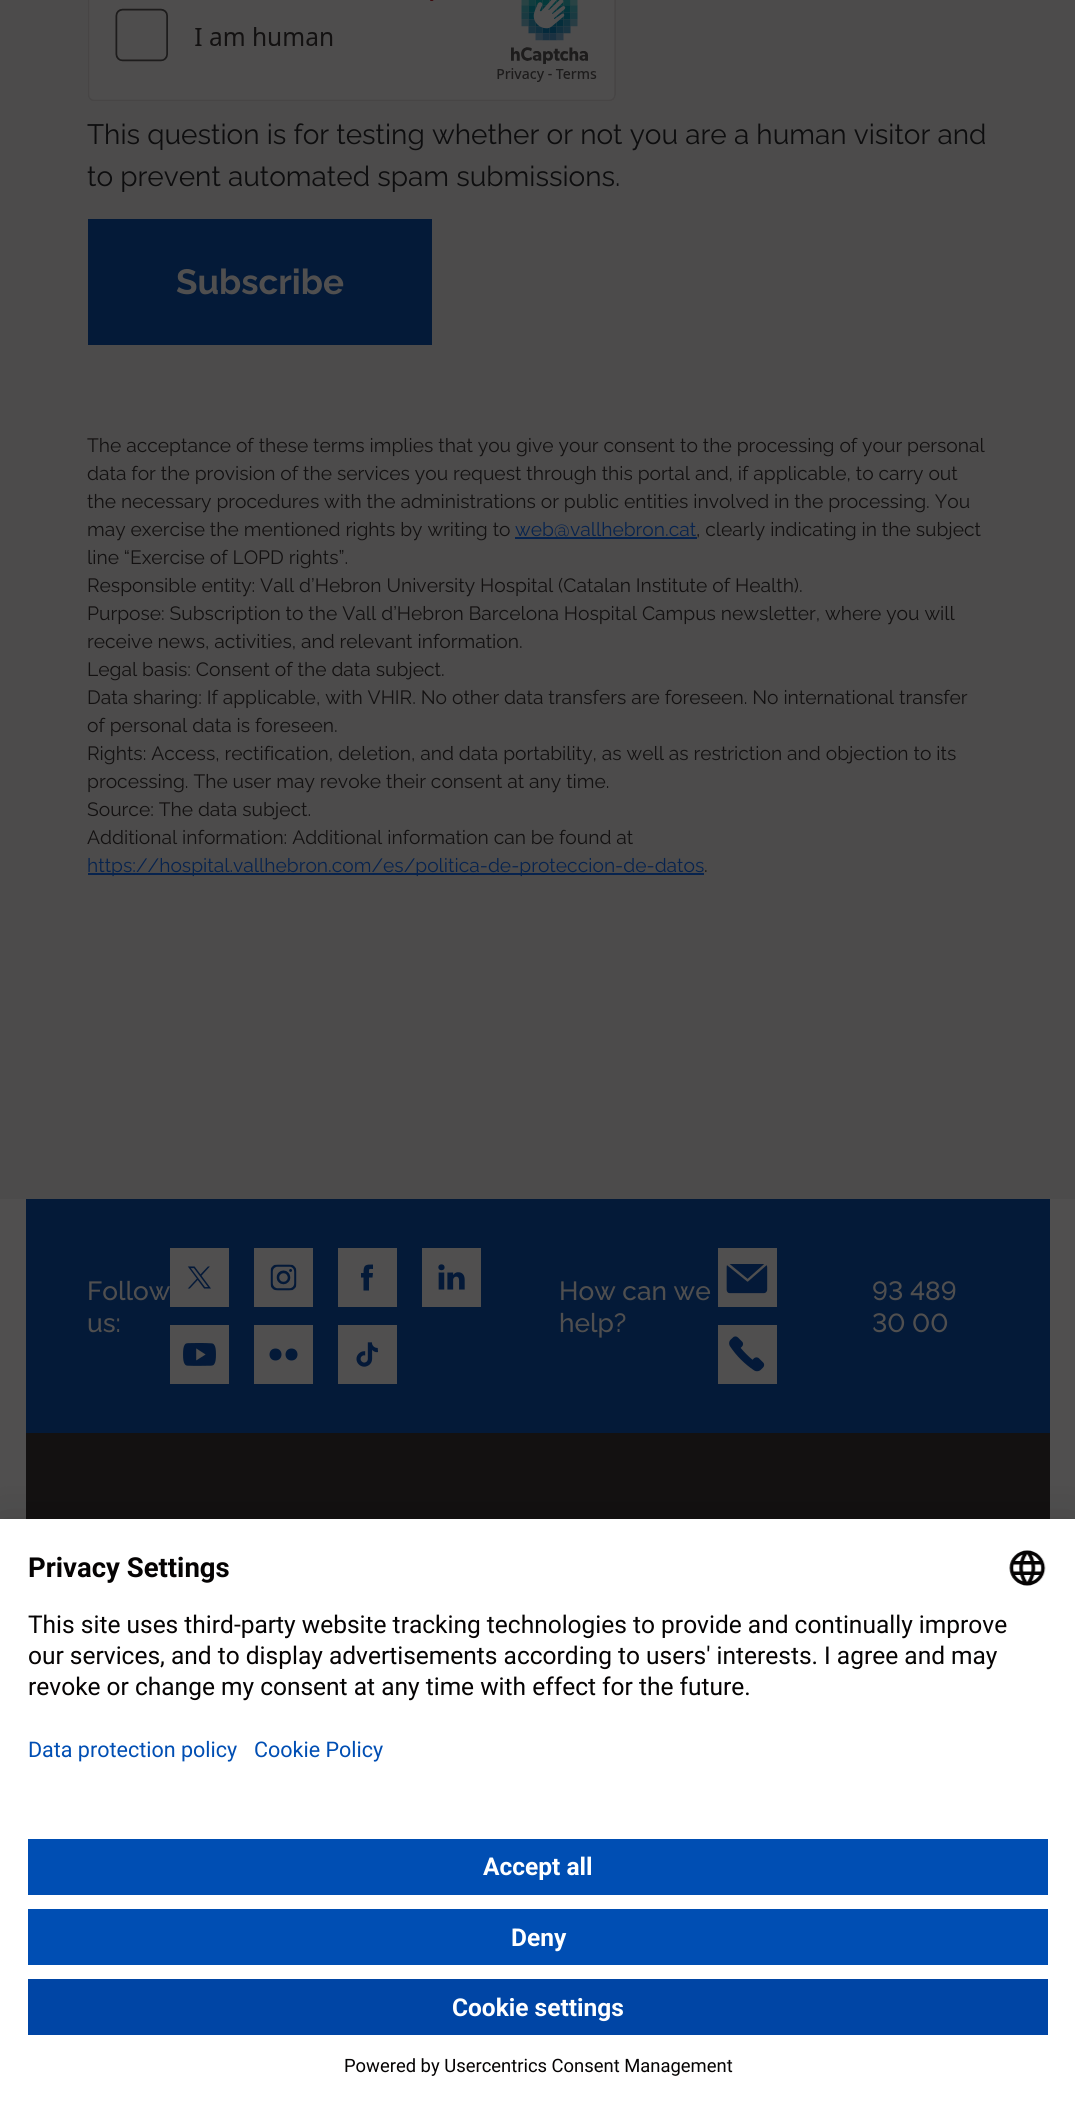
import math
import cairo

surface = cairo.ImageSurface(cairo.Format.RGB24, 1075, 2105)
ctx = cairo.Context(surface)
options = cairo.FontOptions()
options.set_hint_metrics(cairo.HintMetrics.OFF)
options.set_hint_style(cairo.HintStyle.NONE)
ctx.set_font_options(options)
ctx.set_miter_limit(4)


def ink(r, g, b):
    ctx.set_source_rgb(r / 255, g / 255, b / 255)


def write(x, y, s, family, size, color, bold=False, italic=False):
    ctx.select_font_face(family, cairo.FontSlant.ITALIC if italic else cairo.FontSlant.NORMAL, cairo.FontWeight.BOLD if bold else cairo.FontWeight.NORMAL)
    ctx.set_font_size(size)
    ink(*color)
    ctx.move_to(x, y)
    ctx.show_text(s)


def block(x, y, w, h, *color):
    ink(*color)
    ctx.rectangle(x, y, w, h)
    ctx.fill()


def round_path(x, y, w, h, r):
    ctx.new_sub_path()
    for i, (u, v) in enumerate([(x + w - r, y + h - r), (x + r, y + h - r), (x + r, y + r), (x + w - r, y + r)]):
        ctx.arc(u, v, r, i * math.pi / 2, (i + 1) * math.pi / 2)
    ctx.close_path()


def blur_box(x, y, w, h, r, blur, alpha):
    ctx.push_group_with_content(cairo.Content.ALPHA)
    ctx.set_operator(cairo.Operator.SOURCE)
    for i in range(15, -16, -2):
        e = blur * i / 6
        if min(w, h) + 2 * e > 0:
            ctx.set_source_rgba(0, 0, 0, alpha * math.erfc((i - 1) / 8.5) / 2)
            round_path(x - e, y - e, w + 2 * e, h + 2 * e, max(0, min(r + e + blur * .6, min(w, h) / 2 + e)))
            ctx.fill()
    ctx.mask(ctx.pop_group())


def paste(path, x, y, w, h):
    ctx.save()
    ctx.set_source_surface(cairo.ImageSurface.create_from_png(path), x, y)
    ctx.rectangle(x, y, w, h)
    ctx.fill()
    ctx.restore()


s1 = dict(family="Raleway", size=28, color=(13, 13, 14))
s2 = dict(family="Raleway", size=35, color=(80, 79, 79), bold=True)
s3 = dict(family="Raleway", size=19.25, color=(19, 17, 17))
s4 = dict(family="Raleway", size=19.25, color=(7, 35, 78))
s5 = dict(family="Raleway Medium", size=26.25, color=(80, 79, 79))
s6 = dict(family="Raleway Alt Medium", size=26.25, color=(80, 79, 79))
s7 = dict(family="Roboto", size=27.5, color=(5, 3, 3), bold=True)
s8 = dict(family="Roboto", size=24.5, color=(5, 3, 3))
s9 = dict(family="Roboto", size=21.5, color=(0, 78, 179))
s10 = dict(family="Roboto", size=24.5, color=(255, 255, 255), bold=True)
s11 = dict(family="Roboto", size=18.4, color=(5, 3, 3))

ink(80, 79, 79)
ctx.paint()
block(0, 0, 1075, 1199, 76, 75, 75)
paste("pic1.png", 88, 0, 528, 101)
write(87, 144, "This question is for testing whether or not you are a human visitor and", **s1)
write(87, 186, "to prevent automated spam submissions.", **s1)
block(88, 219, 344, 126, 4, 26, 56)
write(176, 294, "Subscribe", **s2)
write(87, 452, "The acceptance of these terms implies that you give your consent to the processing of your personal", **s3)
write(87, 480, "data for the provision of the services you request through this portal and, if applicable, to carry out", **s3)
write(87, 508, "the necessary procedures with the administrations or public entities involved in the processing. You", **s3)
write(87, 536, "may exercise the mentioned rights by writing to", **s3)
block(515, 537, 182, 2, 7, 35, 78)
write(515, 536, "web@vallhebron.cat", **s4)
write(696, 536, ", clearly indicating in the subject", **s3)
write(87, 564, "line “Exercise of LOPD rights”.", **s3)
write(87, 592, "Responsible entity: Vall d’Hebron University Hospital (Catalan Institute of Health).", **s3)
write(87, 620, "Purpose: Subscription to the Vall d’Hebron Barcelona Hospital Campus newsletter, where you will", **s3)
write(87, 648, "receive news, activities, and relevant information.", **s3)
write(87, 676, "Legal basis: Consent of the data subject.", **s3)
write(87, 704, "Data sharing: If applicable, with VHIR. No other data transfers are foreseen. No international transfer", **s3)
write(87, 732, "of personal data is foreseen.", **s3)
write(87, 760, "Rights: Access, rectification, deletion, and data portability, as well as restriction and objection to its", **s3)
write(87, 788, "processing. The user may revoke their consent at any time.", **s3)
write(87, 816, "Source: The data subject.", **s3)
write(87, 844, "Additional information: Additional information can be found at", **s3)
block(88, 873, 616, 2, 7, 35, 78)
write(87, 872, "https://hospital.vallhebron.com/es/politica-de-proteccion-de-datos", **s4)
write(704, 872, ".", **s3)
block(26, 1199, 1024, 234, 4, 26, 56)
write(87, 1300, "Follow", **s5)
write(87, 1332, "us:", **s5)
block(170, 1248, 59, 59, 80, 79, 79)
paste("pic2.png", 187, 1266, 24, 23)
block(254, 1248, 59, 59, 80, 79, 79)
paste("pic3.png", 270, 1264, 27, 27)
block(338, 1248, 59, 59, 80, 79, 79)
ink(4, 26, 56)
ctx.new_path()
ctx.move_to(372.5, 1277.5)
ctx.line_to(369, 1277.5)
ctx.line_to(369, 1290.5)
ctx.line_to(363.5, 1290.5)
ctx.line_to(363.5, 1277.5)
ctx.line_to(361, 1277.5)
ctx.line_to(361, 1273)
ctx.line_to(363.5, 1273)
ctx.curve_to(363.5, 1264.5, 365.5, 1264.5, 373, 1264.5)
ctx.line_to(373, 1269)
ctx.curve_to(369, 1269, 369, 1268, 369, 1273)
ctx.line_to(373, 1273)
ctx.close_path()
ctx.fill()
block(422, 1248, 59, 59, 80, 79, 79)
paste("pic4.png", 438, 1264, 27, 26)
block(170, 1325, 59, 59, 80, 79, 79)
paste("pic5.png", 183, 1343, 33, 23)
block(254, 1325, 59, 59, 80, 79, 79)
ink(4, 26, 56)
ctx.new_path()
ctx.move_to(275.5, 1360.5)
ctx.curve_to(267.5, 1360.5, 267.5, 1348.5, 275.5, 1348.5)
ctx.curve_to(283.5, 1348.5, 283.5, 1360.5, 275.5, 1360.5)
ctx.close_path()
ctx.move_to(291.5, 1360.5)
ctx.curve_to(283.5, 1360.5, 283.5, 1348.5, 291.5, 1348.5)
ctx.curve_to(299.5, 1348.5, 299.5, 1360.5, 291.5, 1360.5)
ctx.close_path()
ctx.fill()
block(338, 1325, 59, 59, 80, 79, 79)
paste("pic6.png", 356, 1342, 22, 25)
write(559, 1300, "How can we", **s5)
write(559, 1332, "help?", **s5)
block(718, 1248, 59, 59, 80, 79, 79)
paste("pic7.png", 726, 1264, 42, 30)
block(718, 1325, 59, 59, 80, 79, 79)
paste("pic8.png", 729, 1336, 36, 36)
write(872, 1300, "93 489", **s6)
write(872, 1332, "30 00", **s6)
block(26, 1433, 1024, 86, 19, 17, 17)
ink(0, 0, 0)
blur_box(0, 1528, 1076, 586, 0, 23, 0.22)
block(0, 1519, 1075, 586, 255, 255, 255)
write(28, 1577, "Privacy Settings", **s7)
paste("pic9.png", 1009, 1550, 37, 36)
write(28, 1633, "This site uses third-party website tracking technologies to provide and continually improve", **s8)
write(28, 1664, "our services, and to display advertisements according to users' interests. I agree and may", **s8)
write(28, 1695, "revoke or change my consent at any time with effect for the future.", **s8)
write(28, 1757, "Data protection policy", **s9)
write(254, 1757, "Cookie Policy", **s9)
block(28, 1839, 1020, 56, 0, 78, 179)
write(483, 1875, "Accept all", **s10)
block(28, 1909, 1020, 56, 0, 78, 179)
write(511, 1946, "Deny", **s10)
block(28, 1979, 1020, 56, 0, 69, 165)
write(452, 2016, "Cookie settings", **s10)
write(344, 2072, "Powered by Usercentrics Consent Management", **s11)
surface.write_to_png("screenshot.png")
